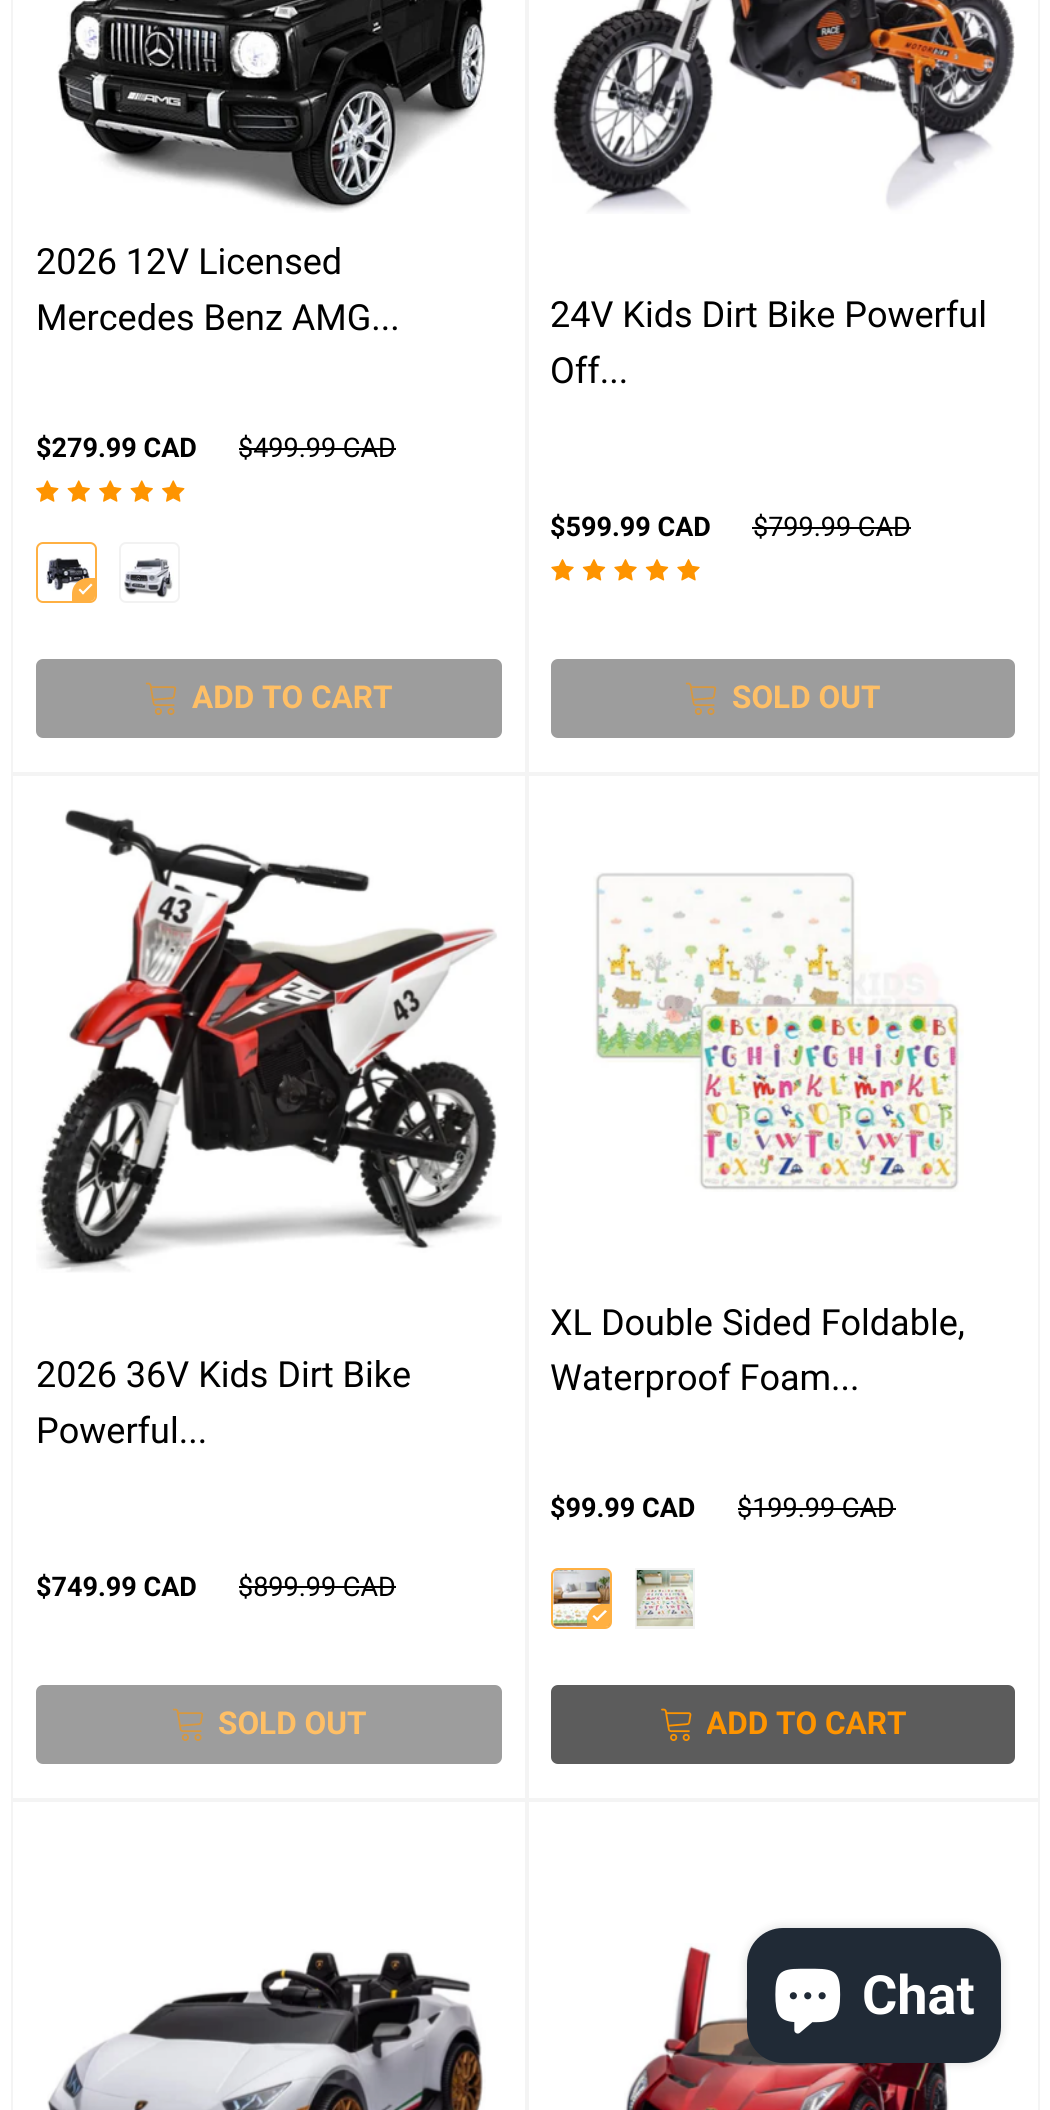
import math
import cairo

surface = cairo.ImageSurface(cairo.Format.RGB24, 1050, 2110)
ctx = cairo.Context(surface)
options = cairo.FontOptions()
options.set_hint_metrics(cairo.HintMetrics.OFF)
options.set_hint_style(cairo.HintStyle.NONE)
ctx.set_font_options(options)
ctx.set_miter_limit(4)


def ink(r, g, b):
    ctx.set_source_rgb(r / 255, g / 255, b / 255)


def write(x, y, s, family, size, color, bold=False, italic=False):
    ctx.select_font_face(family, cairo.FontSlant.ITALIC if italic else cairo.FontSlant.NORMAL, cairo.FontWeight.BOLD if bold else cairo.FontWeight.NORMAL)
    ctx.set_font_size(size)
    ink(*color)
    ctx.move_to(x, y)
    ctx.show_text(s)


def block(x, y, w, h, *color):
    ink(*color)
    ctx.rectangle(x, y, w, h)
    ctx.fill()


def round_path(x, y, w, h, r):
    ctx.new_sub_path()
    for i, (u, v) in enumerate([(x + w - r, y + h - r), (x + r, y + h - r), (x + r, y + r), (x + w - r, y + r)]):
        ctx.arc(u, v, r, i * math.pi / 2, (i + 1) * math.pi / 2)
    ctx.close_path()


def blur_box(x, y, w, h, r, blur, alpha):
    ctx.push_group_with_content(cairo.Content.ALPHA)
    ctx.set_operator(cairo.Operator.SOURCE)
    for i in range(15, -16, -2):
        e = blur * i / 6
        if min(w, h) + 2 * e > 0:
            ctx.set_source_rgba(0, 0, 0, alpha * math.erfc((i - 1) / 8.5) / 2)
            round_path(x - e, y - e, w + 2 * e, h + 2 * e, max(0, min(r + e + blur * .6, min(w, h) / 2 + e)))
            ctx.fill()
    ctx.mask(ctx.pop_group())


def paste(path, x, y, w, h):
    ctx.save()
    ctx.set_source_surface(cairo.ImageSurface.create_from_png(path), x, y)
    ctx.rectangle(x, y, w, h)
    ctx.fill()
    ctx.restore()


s1 = dict(family="Roboto", size=36, color=(0, 0, 0))
s2 = dict(family="Roboto", size=27, color=(0, 0, 0), bold=True)
s3 = dict(family="Roboto", size=27, color=(0, 0, 0))
s4 = dict(family="Roboto", size=31.5, color=(254, 191, 102), bold=True)
s5 = dict(family="Roboto", size=31.5, color=(254, 148, 0), bold=True)
s6 = dict(family="Roboto", size=54, color=(255, 255, 255), bold=True)

ink(255, 255, 255)
ctx.paint()
ctx.rectangle(12, -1, 514, 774)
ink(244, 244, 244)
ctx.stroke()
paste("pic1.png", 57, 0, 429, 213)
write(36, 274, "2026 12V Licensed", **s1)
write(36, 330, "Mercedes Benz AMG...", **s1)
write(36, 457, "$279.99 CAD", **s2)
write(238, 457, "$499.99 CAD", **s3)
block(239, 448, 157, 2, 0, 0, 0)
paste("pic2.png", 36, 480, 23, 22)
paste("pic3.png", 67, 480, 23, 22)
paste("pic2.png", 99, 480, 23, 22)
paste("pic3.png", 130, 480, 23, 22)
paste("pic2.png", 162, 480, 23, 22)
paste("pic4.png", 46, 557, 44, 34)
round_path(37, 543, 59, 59, 6)
ink(255, 176, 66)
ctx.stroke()
ctx.new_path()
ctx.move_to(88, 578)
ctx.line_to(95, 578)
ctx.line_to(95, 596)
ctx.curve_to(95, 599, 93, 601, 90, 601)
ctx.line_to(72, 601)
ctx.line_to(72, 594)
ctx.curve_to(72, 585, 79, 578, 88, 578)
ctx.close_path()
ctx.fill()
ink(255, 255, 255)
ctx.new_path()
ctx.move_to(81.5, 593)
ctx.line_to(91, 583.5)
ctx.line_to(92.5, 585)
ctx.line_to(83, 594.5)
ctx.close_path()
ctx.fill()
ctx.new_path()
ctx.move_to(78.5, 590)
ctx.line_to(80, 588.5)
ctx.line_to(84.5, 593)
ctx.line_to(83, 594.5)
ctx.close_path()
ctx.fill()
paste("pic5.png", 124, 558, 50, 40)
round_path(120, 543, 59, 59, 6)
ink(242, 242, 242)
ctx.stroke()
ink(157, 157, 157)
round_path(36, 659, 466, 79, 7)
ctx.fill()
paste("pic6.png", 145, 682, 32, 33)
write(192, 708, "ADD TO CART", **s4)
ctx.rectangle(528, -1, 511, 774)
ink(244, 244, 244)
ctx.stroke()
paste("pic7.png", 552, 0, 463, 214)
write(550, 327, "24V Kids Dirt Bike Powerful", **s1)
write(550, 383, "Off...", **s1)
write(550, 536, "$599.99 CAD", **s2)
write(753, 536, "$799.99 CAD", **s3)
block(752, 527, 159, 2, 0, 0, 0)
paste("pic8.png", 551, 559, 23, 22)
paste("pic9.png", 582, 559, 24, 22)
paste("pic8.png", 614, 559, 23, 22)
paste("pic9.png", 645, 559, 24, 22)
paste("pic8.png", 677, 559, 23, 22)
ink(157, 157, 157)
round_path(551, 659, 464, 79, 7)
ctx.fill()
paste("pic6.png", 685, 682, 32, 33)
write(732, 708, "SOLD OUT", **s4)
ctx.rectangle(12, 775, 514, 1024)
ink(244, 244, 244)
ctx.stroke()
paste("pic10.png", 36, 809, 466, 464)
write(36, 1387, "2026 36V Kids Dirt Bike", **s1)
write(36, 1443, "Powerful...", **s1)
write(36, 1596, "$749.99 CAD", **s2)
write(238, 1596, "$899.99 CAD", **s3)
block(239, 1586, 157, 2, 0, 0, 0)
ink(157, 157, 157)
round_path(36, 1685, 466, 79, 7)
ctx.fill()
paste("pic6.png", 172, 1708, 32, 33)
write(218, 1734, "SOLD OUT", **s4)
ctx.rectangle(528, 775, 511, 1024)
ink(244, 244, 244)
ctx.stroke()
paste("pic11.png", 593, 872, 371, 320)
write(550, 1335, "XL Double Sided Foldable,", **s1)
write(550, 1390, "Waterproof Foam...", **s1)
write(550, 1517, "$99.99 CAD", **s2)
write(737, 1517, "$199.99 CAD", **s3)
block(738, 1508, 158, 2, 0, 0, 0)
paste("pic12.png", 553, 1570, 57, 57)
round_path(552, 1569, 59, 59, 6)
ink(255, 176, 66)
ctx.stroke()
ctx.new_path()
ctx.move_to(603, 1604)
ctx.line_to(610, 1604)
ctx.line_to(610, 1622)
ctx.curve_to(610, 1625, 608, 1627, 605, 1627)
ctx.line_to(587, 1627)
ctx.line_to(587, 1620)
ctx.curve_to(587, 1611, 594, 1604, 603, 1604)
ctx.close_path()
ctx.fill()
ink(255, 255, 255)
ctx.new_path()
ctx.move_to(595.5, 1619.5)
ctx.line_to(605, 1610)
ctx.line_to(607, 1611.5)
ctx.line_to(597, 1621)
ctx.close_path()
ctx.fill()
ctx.new_path()
ctx.move_to(592.5, 1616.5)
ctx.line_to(594, 1615)
ctx.line_to(599, 1619.5)
ctx.line_to(597, 1621)
ctx.close_path()
ctx.fill()
paste("pic13.png", 636, 1570, 57, 57)
ctx.rectangle(636, 1569, 58, 59)
ctx.set_source_rgba(0, 0, 0, 0.05)
ctx.stroke()
ink(92, 92, 92)
round_path(551, 1685, 464, 79, 7)
ctx.fill()
paste("pic14.png", 661, 1708, 31, 33)
ctx.save()
ctx.rectangle(707, 1685, 200, 79)
ctx.clip()
write(706, 1734, "ADD TO CART", **s5)
ctx.restore()
ctx.rectangle(12, 1801, 514, 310)
ink(244, 244, 244)
ctx.stroke()
paste("pic15.png", 47, 1949, 439, 161)
ctx.rectangle(528, 1801, 511, 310)
ctx.stroke()
paste("pic16.png", 624, 1943, 327, 167)
ink(0, 0, 0)
blur_box(747, 1928, 254, 135, 36, 5.5, 0.15)
ink(32, 42, 54)
round_path(747, 1928, 254, 135, 36)
ctx.fill()
paste("pic17.png", 775, 1968, 66, 66)
write(862, 2014, "Chat", **s6)
surface.write_to_png("screenshot.png")
